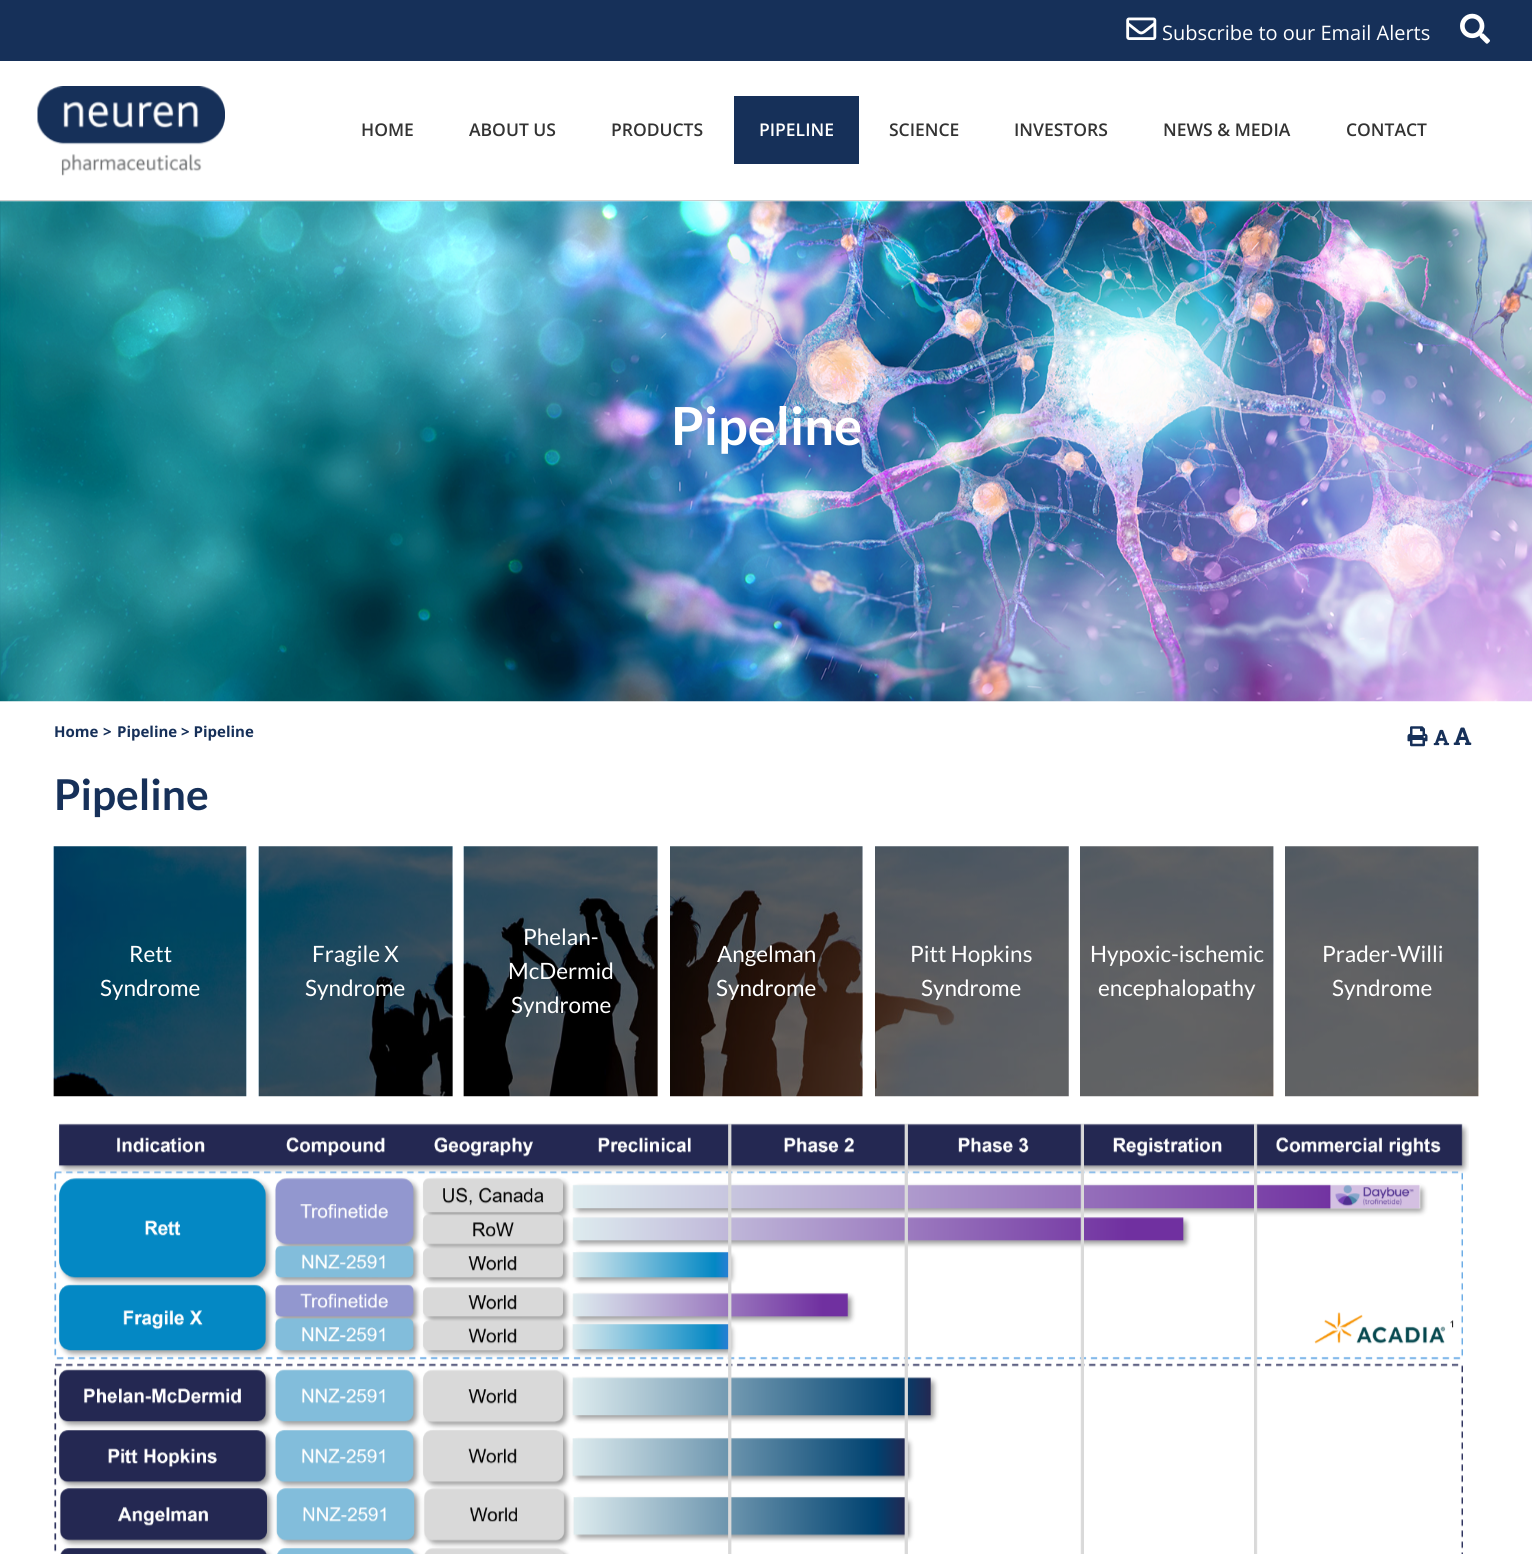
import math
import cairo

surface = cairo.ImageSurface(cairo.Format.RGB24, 1532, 1554)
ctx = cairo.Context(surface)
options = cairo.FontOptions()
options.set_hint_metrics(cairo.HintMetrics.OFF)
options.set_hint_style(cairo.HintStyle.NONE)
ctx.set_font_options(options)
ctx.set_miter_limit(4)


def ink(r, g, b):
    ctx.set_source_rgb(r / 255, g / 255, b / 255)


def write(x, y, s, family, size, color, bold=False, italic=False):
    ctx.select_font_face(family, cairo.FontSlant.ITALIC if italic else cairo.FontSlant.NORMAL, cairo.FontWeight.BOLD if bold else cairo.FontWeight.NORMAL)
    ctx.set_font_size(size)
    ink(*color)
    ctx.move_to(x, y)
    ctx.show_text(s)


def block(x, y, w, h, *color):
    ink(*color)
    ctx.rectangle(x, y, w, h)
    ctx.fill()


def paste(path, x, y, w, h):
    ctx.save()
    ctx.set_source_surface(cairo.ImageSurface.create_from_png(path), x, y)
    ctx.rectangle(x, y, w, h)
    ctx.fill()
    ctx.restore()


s1 = dict(family="Open Sans", size=20, color=(255, 255, 255))
s2 = dict(family="Open Sans SemiBold", size=17.5, color=(51, 51, 51))
s3 = dict(family="Open Sans SemiBold", size=17.5, color=(255, 255, 255))
s4 = dict(family="Lato", size=52.5, color=(255, 255, 255), bold=True)
s5 = dict(family="Open Sans", size=15, color=(22, 48, 89), bold=True)
s6 = dict(family="Lato", size=42.5, color=(22, 48, 89), bold=True)
s7 = dict(family="Lato", size=22.5, color=(255, 255, 255))

ink(255, 255, 255)
ctx.paint()
block(0, 0, 1532, 61, 22, 48, 89)
paste("pic1.png", 1126, 17, 31, 23)
write(1162, 40, "Subscribe to our Email Alerts", **s1)
paste("pic2.png", 1460, 13, 30, 31)
block(0, 200, 1532, 1, 207, 207, 207)
paste("pic3.png", 37, 86, 188, 90)
write(361, 136, "HOME", **s2)
write(469, 136, "ABOUT US", **s2)
write(611, 136, "PRODUCTS", **s2)
block(734, 96, 125, 68, 22, 48, 89)
write(759, 136, "PIPELINE", **s3)
write(889, 136, "SCIENCE", **s2)
write(1014, 136, "INVESTORS", **s2)
write(1163, 136, "NEWS & MEDIA", **s2)
write(1346, 136, "CONTACT", **s2)
paste("pic4.png", 0, 201, 1532, 501)
write(671, 445, "Pipeline", **s4)
write(54, 737, "Home", **s5)
write(103, 737, ">", **s5)
write(117, 737, "Pipeline > Pipeline", **s5)
paste("pic5.png", 1407, 726, 21, 21)
paste("pic6.png", 1433, 729, 17, 17)
paste("pic7.png", 1453, 727, 19, 18)
write(54, 810, "Pipeline", **s6)
paste("pic8.png", 53, 846, 194, 251)
write(129, 962, "Rett", **s7)
write(100, 996, "Syndrome", **s7)
paste("pic9.png", 258, 846, 195, 251)
write(312, 962, "Fragile X", **s7)
write(305, 996, "Syndrome", **s7)
paste("pic10.png", 463, 846, 195, 251)
write(523, 945, "Phelan-", **s7)
write(508, 979, "McDermid", **s7)
write(511, 1013, "Syndrome", **s7)
paste("pic11.png", 670, 846, 193, 251)
write(717, 962, "Angelman", **s7)
write(716, 996, "Syndrome", **s7)
paste("pic12.png", 875, 846, 194, 251)
write(910, 962, "Pitt Hopkins", **s7)
write(921, 996, "Syndrome", **s7)
paste("pic13.png", 1080, 846, 194, 251)
write(1090, 962, "Hypoxic-ischemic", **s7)
write(1098, 996, "encephalopathy", **s7)
paste("pic14.png", 1285, 846, 194, 251)
write(1322, 962, "Prader-Willi", **s7)
write(1332, 996, "Syndrome", **s7)
paste("pic15.png", 54, 1123, 1415, 431)
surface.write_to_png("screenshot.png")
